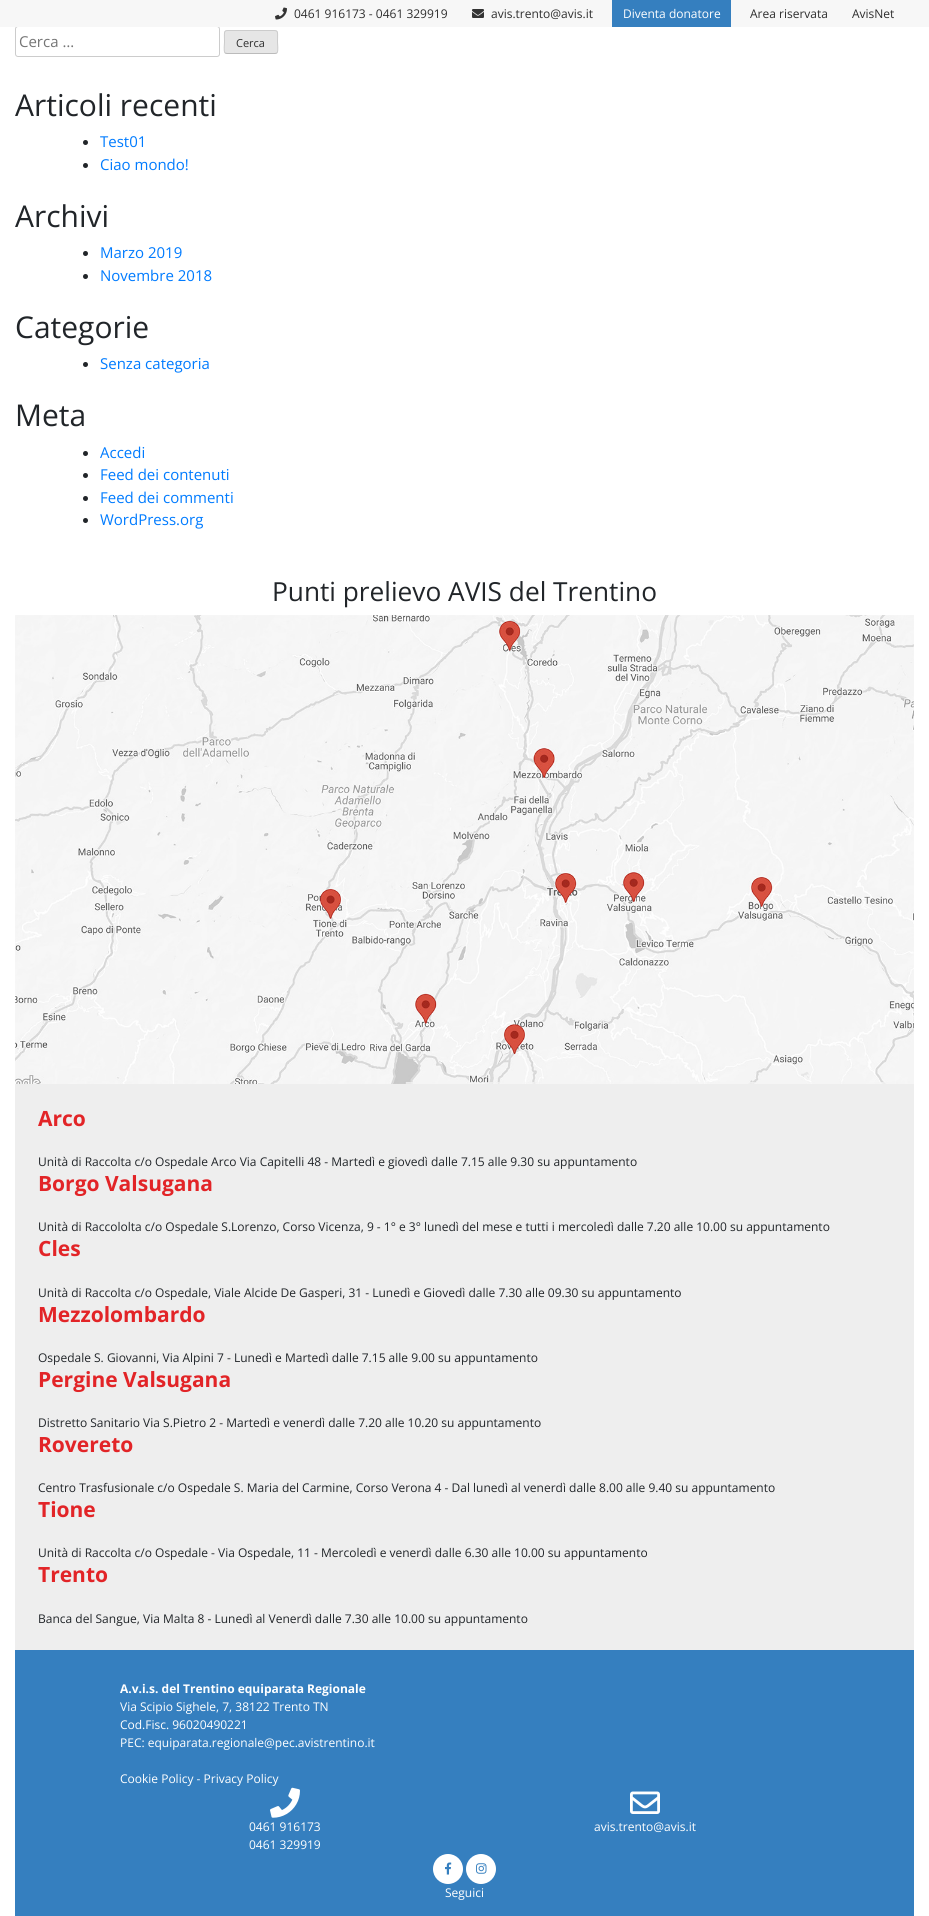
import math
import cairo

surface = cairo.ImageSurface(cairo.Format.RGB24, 929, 1916)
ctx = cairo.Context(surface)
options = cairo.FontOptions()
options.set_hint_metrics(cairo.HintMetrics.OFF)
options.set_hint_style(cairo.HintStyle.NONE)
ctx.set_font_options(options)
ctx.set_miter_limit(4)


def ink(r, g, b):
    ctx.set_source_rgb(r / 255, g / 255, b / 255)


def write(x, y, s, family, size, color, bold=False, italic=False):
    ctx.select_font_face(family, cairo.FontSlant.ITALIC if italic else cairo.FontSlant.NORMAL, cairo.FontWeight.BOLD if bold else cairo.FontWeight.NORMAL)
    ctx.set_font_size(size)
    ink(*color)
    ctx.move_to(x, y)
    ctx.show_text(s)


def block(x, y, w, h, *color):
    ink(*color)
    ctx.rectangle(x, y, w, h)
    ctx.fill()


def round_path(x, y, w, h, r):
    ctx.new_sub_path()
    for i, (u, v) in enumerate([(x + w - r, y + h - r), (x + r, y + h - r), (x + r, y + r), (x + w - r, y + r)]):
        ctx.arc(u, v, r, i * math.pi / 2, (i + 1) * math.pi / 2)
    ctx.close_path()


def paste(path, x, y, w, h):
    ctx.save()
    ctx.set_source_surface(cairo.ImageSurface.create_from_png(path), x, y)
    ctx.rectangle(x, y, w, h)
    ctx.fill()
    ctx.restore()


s1 = dict(family="Open Sans", size=12, color=(46, 46, 46))
s2 = dict(family="Open Sans", size=12, color=(255, 255, 255))
s3 = dict(family="Open Sans", size=15, color=(117, 117, 117))
s4 = dict(family="Open Sans", size=11, color=(46, 46, 46))
s5 = dict(family="Open Sans", size=30, color=(33, 37, 41))
s6 = dict(family="Open Sans", size=15, color=(0, 123, 255))
s7 = dict(family="Open Sans", size=26.25, color=(33, 37, 41))
s8 = dict(family="Open Sans", size=21, color=(226, 36, 39), bold=True)
s9 = dict(family="Open Sans", size=12, color=(33, 37, 41))
s10 = dict(family="Open Sans", size=12, color=(255, 255, 255), bold=True)

ink(255, 255, 255)
ctx.paint()
round_path(15.5, 26.5, 204, 30, 2.5)
ink(204, 204, 204)
ctx.set_line_width(1)
ctx.stroke()
block(0, 0, 929, 27, 247, 247, 247)
paste("pic1.png", 275, 7, 12, 13)
write(294, 18, "0461 916173 - 0461 329919", **s1)
paste("pic2.png", 472, 9, 12, 9)
write(491, 18, "avis.trento@avis.it", **s1)
block(612, 0, 119, 27, 53, 127, 191)
write(623, 18, "Diventa donatore", **s2)
write(750, 18, "Area riservata", **s1)
write(852, 18, "AvisNet", **s1)
write(19, 47, "Cerca …", **s3)
ink(230, 230, 230)
round_path(224, 30, 54, 24, 3)
ctx.fill()
ctx.new_path()
ctx.move_to(277, 53)
ctx.line_to(275, 53.5)
ctx.line_to(227, 53.5)
ctx.line_to(225, 53)
ink(187, 187, 187)
ctx.stroke()
ctx.new_path()
ctx.move_to(225, 53)
ctx.curve_to(223.5, 51, 224.5, 44, 224.5, 42)
ctx.curve_to(224.5, 29, 222.5, 30.5, 235, 30.5)
ctx.line_to(267, 30.5)
ctx.curve_to(279.5, 30.5, 277.5, 29, 277.5, 42)
ctx.curve_to(277.5, 44, 278.5, 51, 277, 53)
ink(204, 204, 204)
ctx.stroke()
write(236, 47, "Cerca", **s4)
write(15, 116, "Articoli recenti", **s5)
ctx.new_path()
ctx.arc(85.5, 142.5, 2.5, 0, 2 * math.pi)
ctx.fill()
write(100, 147, "Test01", **s6)
ink(33, 37, 41)
ctx.new_path()
ctx.arc(85.5, 165.5, 2.5, 0, 2 * math.pi)
ctx.fill()
write(100, 170, "Ciao mondo!", **s6)
write(15, 227, "Archivi", **s5)
ctx.new_path()
ctx.arc(85.5, 253.5, 2.5, 0, 2 * math.pi)
ctx.fill()
write(100, 258, "Marzo 2019", **s6)
ink(33, 37, 41)
ctx.new_path()
ctx.arc(85.5, 276.5, 2.5, 0, 2 * math.pi)
ctx.fill()
write(100, 281, "Novembre 2018", **s6)
write(15, 338, "Categorie", **s5)
ctx.new_path()
ctx.arc(85.5, 364.5, 2.5, 0, 2 * math.pi)
ctx.fill()
write(100, 369, "Senza categoria", **s6)
write(15, 426, "Meta", **s5)
ctx.new_path()
ctx.arc(85.5, 453.5, 2.5, 0, 2 * math.pi)
ctx.fill()
write(100, 458, "Accedi", **s6)
ink(33, 37, 41)
ctx.new_path()
ctx.arc(85.5, 475.5, 2.5, 0, 2 * math.pi)
ctx.fill()
write(100, 480, "Feed dei contenuti", **s6)
ink(33, 37, 41)
ctx.new_path()
ctx.arc(85.5, 498.5, 2.5, 0, 2 * math.pi)
ctx.fill()
write(100, 503, "Feed dei commenti", **s6)
ink(33, 37, 41)
ctx.new_path()
ctx.arc(85.5, 520.5, 2.5, 0, 2 * math.pi)
ctx.fill()
write(100, 525, "WordPress.org", **s6)
write(272, 601, "Punti prelievo AVIS del Trentino", **s7)
paste("pic3.png", 15, 615, 899, 469)
block(15, 1084, 899, 566, 238, 238, 238)
write(38, 1126, "Arco", **s8)
write(38, 1166, "Unità di Raccolta c/o Ospedale Arco Via Capitelli 48 - Martedì e giovedì dalle 7.15 alle 9.30 su appuntamento", **s9)
write(38, 1191, "Borgo Valsugana", **s8)
write(38, 1231, "Unità di Raccololta c/o Ospedale S.Lorenzo, Corso Vicenza, 9 - 1° e 3° lunedì del mese e tutti i mercoledì dalle 7.20 alle 10.00 su appuntamento", **s9)
write(38, 1256, "Cles", **s8)
write(38, 1297, "Unità di Raccolta c/o Ospedale, Viale Alcide De Gasperi, 31 - Lunedì e Giovedì dalle 7.30 alle 09.30 su appuntamento", **s9)
write(38, 1322, "Mezzolombardo", **s8)
write(38, 1362, "Ospedale S. Giovanni, Via Alpini 7 - Lunedì e Martedì dalle 7.15 alle 9.00 su appuntamento", **s9)
write(38, 1387, "Pergine Valsugana", **s8)
write(38, 1427, "Distretto Sanitario Via S.Pietro 2 - Martedì e venerdì dalle 7.20 alle 10.20 su appuntamento", **s9)
write(38, 1452, "Rovereto", **s8)
write(38, 1492, "Centro Trasfusionale c/o Ospedale S. Maria del Carmine, Corso Verona 4 - Dal lunedì al venerdì dalle 8.00 alle 9.40 su appuntamento", **s9)
write(38, 1517, "Tione", **s8)
write(38, 1557, "Unità di Raccolta c/o Ospedale - Via Ospedale, 11 - Mercoledì e venerdì dalle 6.30 alle 10.00 su appuntamento", **s9)
write(38, 1582, "Trento", **s8)
write(38, 1623, "Banca del Sangue, Via Malta 8 - Lunedì al Venerdì dalle 7.30 alle 10.00 su appuntamento", **s9)
block(15, 1650, 899, 266, 53, 127, 191)
write(120, 1693, "A.v.i.s. del Trentino equiparata Regionale", **s10)
write(120, 1711, "Via Scipio Sighele, 7, 38122 Trento TN", **s2)
write(120, 1729, "Cod.Fisc. 96020490221", **s2)
write(120, 1747, "PEC: equiparata.regionale@pec.avistrentino.it", **s2)
write(120, 1783, "Cookie Policy - Privacy Policy", **s2)
paste("pic4.png", 270, 1787, 30, 31)
write(249, 1831, "0461 916173", **s2)
write(249, 1849, "0461 329919", **s2)
paste("pic5.png", 630, 1791, 30, 23)
write(594, 1831, "avis.trento@avis.it", **s2)
ctx.new_path()
ctx.arc(448, 1869, 15, 0, 2 * math.pi)
ctx.fill()
paste("pic6.png", 445, 1862, 7, 13)
ctx.arc(481, 1869, 15, 0, 2 * math.pi)
ctx.fill()
paste("pic7.png", 476, 1863, 11, 11)
write(445, 1897, "Seguici", **s2)
surface.write_to_png("screenshot.png")
